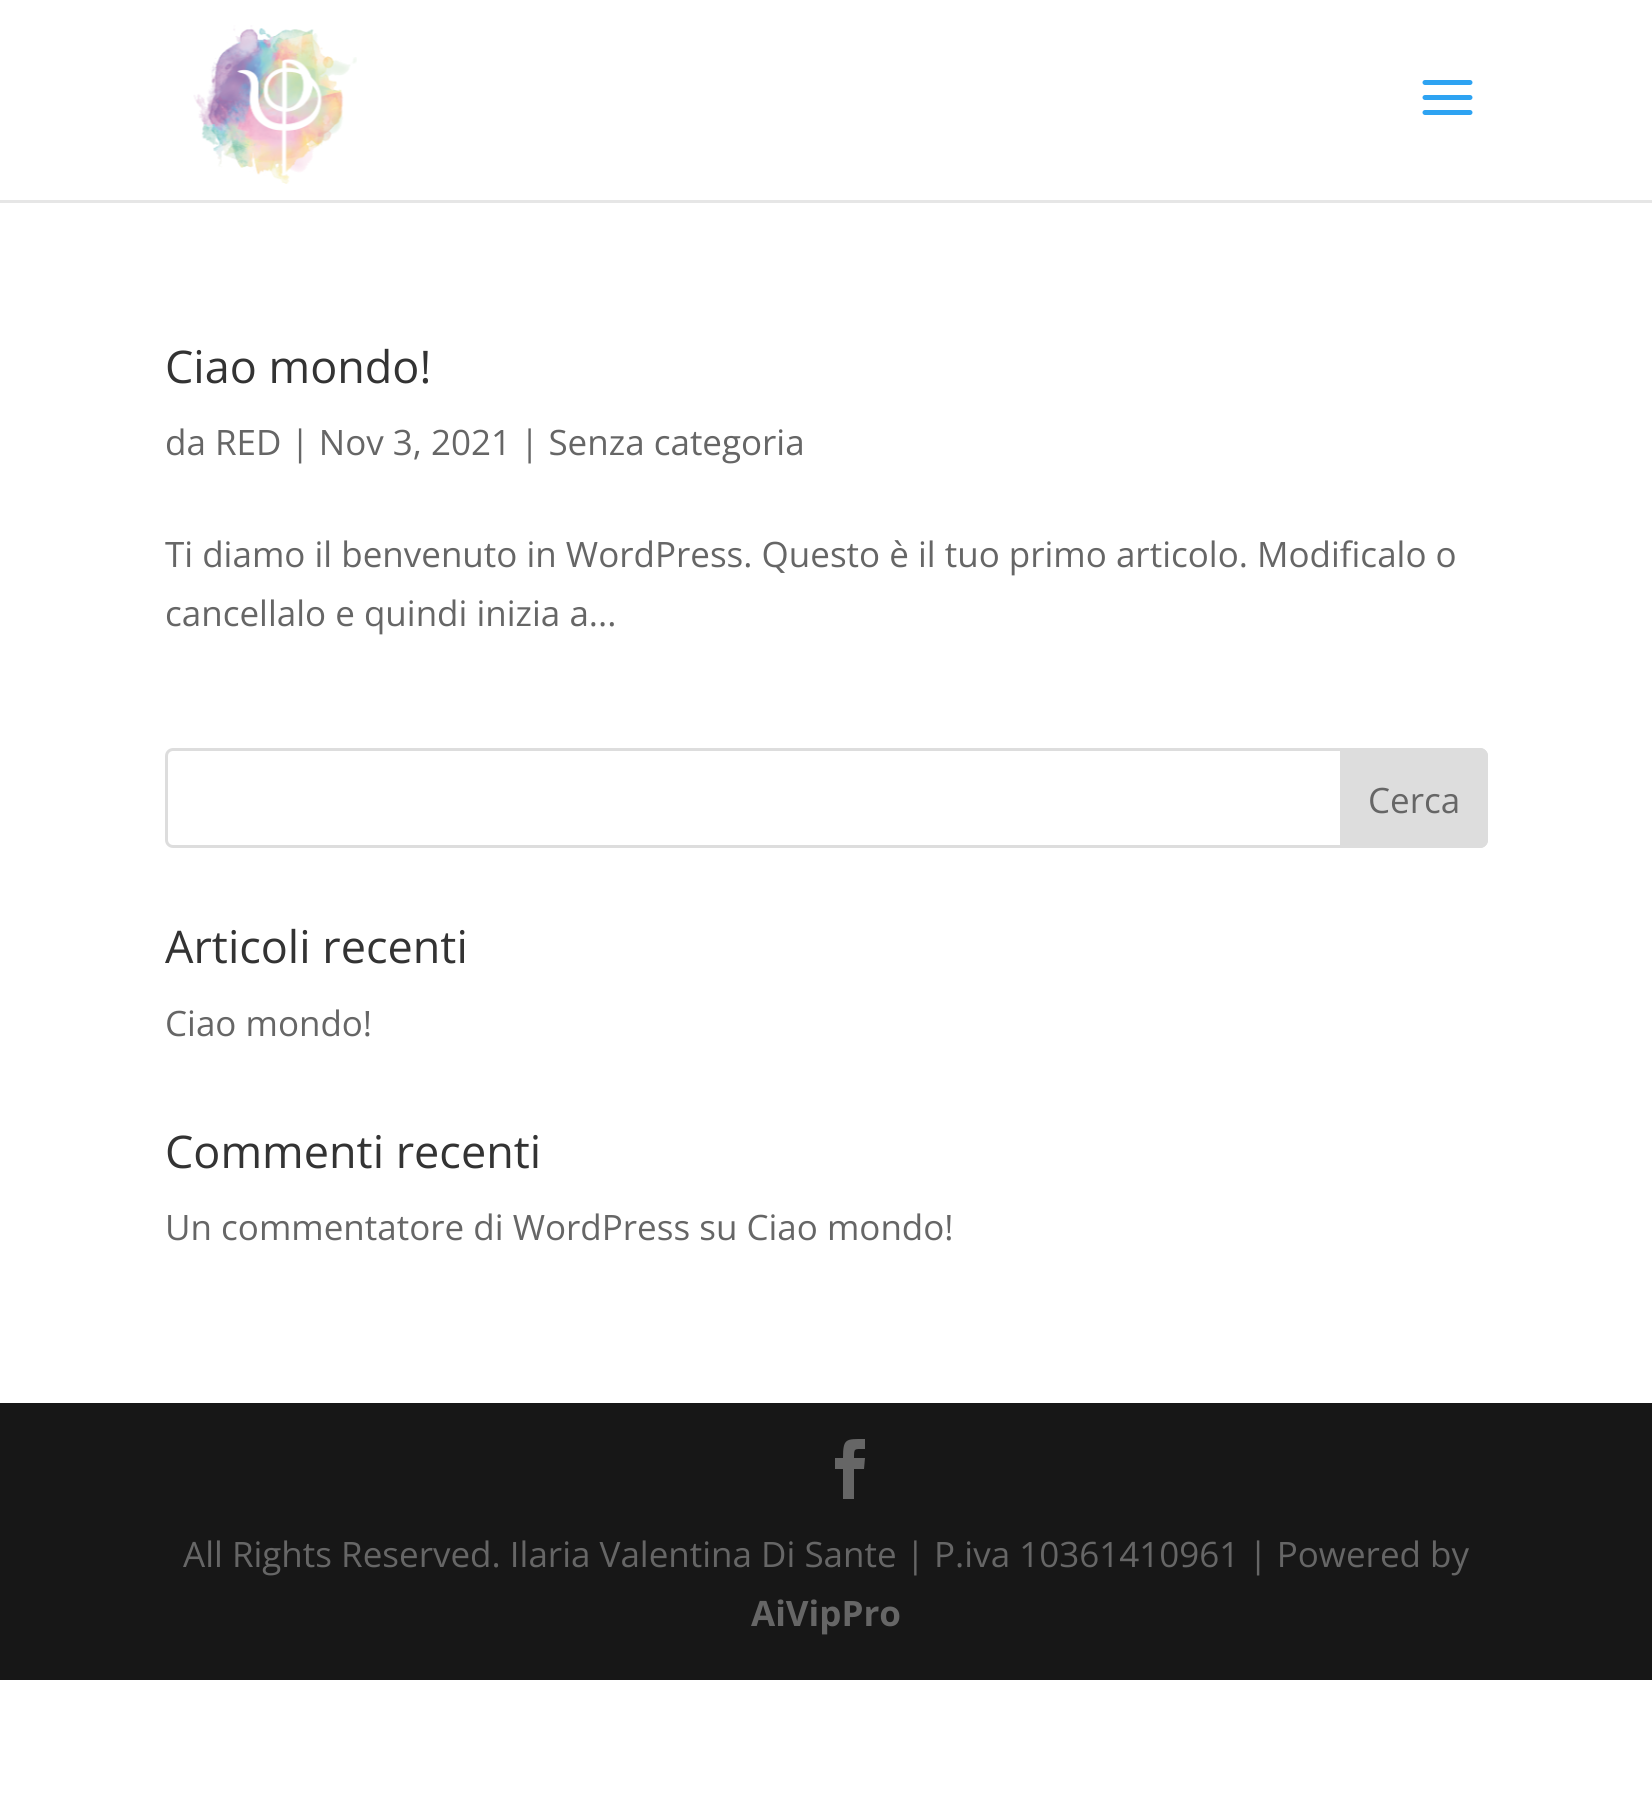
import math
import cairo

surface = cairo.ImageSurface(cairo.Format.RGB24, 1652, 1806)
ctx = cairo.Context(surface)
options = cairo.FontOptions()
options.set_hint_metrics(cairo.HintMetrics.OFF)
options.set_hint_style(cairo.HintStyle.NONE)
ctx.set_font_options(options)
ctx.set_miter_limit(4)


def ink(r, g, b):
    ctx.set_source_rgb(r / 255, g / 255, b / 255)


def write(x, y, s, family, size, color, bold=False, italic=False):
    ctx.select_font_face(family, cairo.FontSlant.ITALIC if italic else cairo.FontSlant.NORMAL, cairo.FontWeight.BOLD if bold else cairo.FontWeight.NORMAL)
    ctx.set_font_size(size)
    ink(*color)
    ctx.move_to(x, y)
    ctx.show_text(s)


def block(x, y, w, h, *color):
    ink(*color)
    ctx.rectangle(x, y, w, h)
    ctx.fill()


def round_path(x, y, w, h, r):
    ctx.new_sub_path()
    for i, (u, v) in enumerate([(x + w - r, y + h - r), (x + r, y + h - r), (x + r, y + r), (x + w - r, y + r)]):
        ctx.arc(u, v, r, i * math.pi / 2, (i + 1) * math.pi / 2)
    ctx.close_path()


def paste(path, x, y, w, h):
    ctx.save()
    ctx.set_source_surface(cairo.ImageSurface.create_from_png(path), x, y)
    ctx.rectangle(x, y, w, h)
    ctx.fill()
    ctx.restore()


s1 = dict(family="Open Sans", size=45, color=(51, 51, 51))
s2 = dict(family="Open Sans", size=35, color=(102, 102, 102))
s3 = dict(family="Open Sans", size=35, color=(102, 102, 102), bold=True)

ink(255, 255, 255)
ctx.paint()
ink(230, 230, 230)
ctx.new_path()
ctx.move_to(0, 200)
ctx.line_to(0, 203)
ctx.line_to(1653, 203)
ctx.line_to(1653, 3)
ctx.line_to(1652, 3)
ctx.line_to(1652, 200)
ctx.close_path()
ctx.fill()
paste("pic1.png", 193, 25, 164, 159)
paste("pic2.png", 1422, 80, 51, 35)
write(165, 383, "Ciao mondo!", **s1)
write(165, 455, "da RED | Nov 3, 2021 | Senza categoria", **s2)
write(165, 567, "Ti diamo il benvenuto in WordPress. Questo è il tuo primo articolo. Modificalo o", **s2)
write(165, 626, "cancellalo e quindi inizia a...", **s2)
round_path(166.5, 749.5, 1320, 97, 6.5)
ink(221, 221, 221)
ctx.set_line_width(3)
ctx.stroke()
ctx.new_path()
ctx.move_to(1341.5, 749.5)
ctx.line_to(1480, 749.5)
ctx.curve_to(1483.5, 749.5, 1486.5, 752.5, 1486.5, 756)
ctx.line_to(1486.5, 840)
ctx.curve_to(1486.5, 843.5, 1483.5, 846.5, 1480, 846.5)
ctx.line_to(1341.5, 846.5)
ctx.close_path()
ctx.fill_preserve()
ctx.stroke()
write(1368, 813, "Cerca", **s2)
write(165, 963, "Articoli recenti", **s1)
write(165, 1036, "Ciao mondo!", **s2)
write(165, 1168, "Commenti recenti", **s1)
write(165, 1240, "Un commentatore di WordPress su Ciao mondo!", **s2)
block(0, 1403, 1652, 277, 23, 23, 23)
ink(102, 102, 102)
ctx.new_path()
ctx.move_to(843, 1499)
ctx.line_to(854, 1499)
ctx.line_to(854, 1469)
ctx.line_to(864, 1469)
ctx.line_to(865, 1458)
ctx.line_to(854, 1458)
ctx.curve_to(854, 1448, 854, 1449, 865, 1449)
ctx.line_to(865, 1439)
ctx.curve_to(846, 1439, 843, 1438, 843, 1458)
ctx.line_to(835, 1458)
ctx.line_to(835, 1469)
ctx.line_to(843, 1469)
ctx.close_path()
ctx.fill()
write(183, 1567, "All Rights Reserved. Ilaria Valentina Di Sante | P.iva 10361410961 | Powered by", **s2)
write(751, 1626, "AiVipPro", **s3)
surface.write_to_png("screenshot.png")
